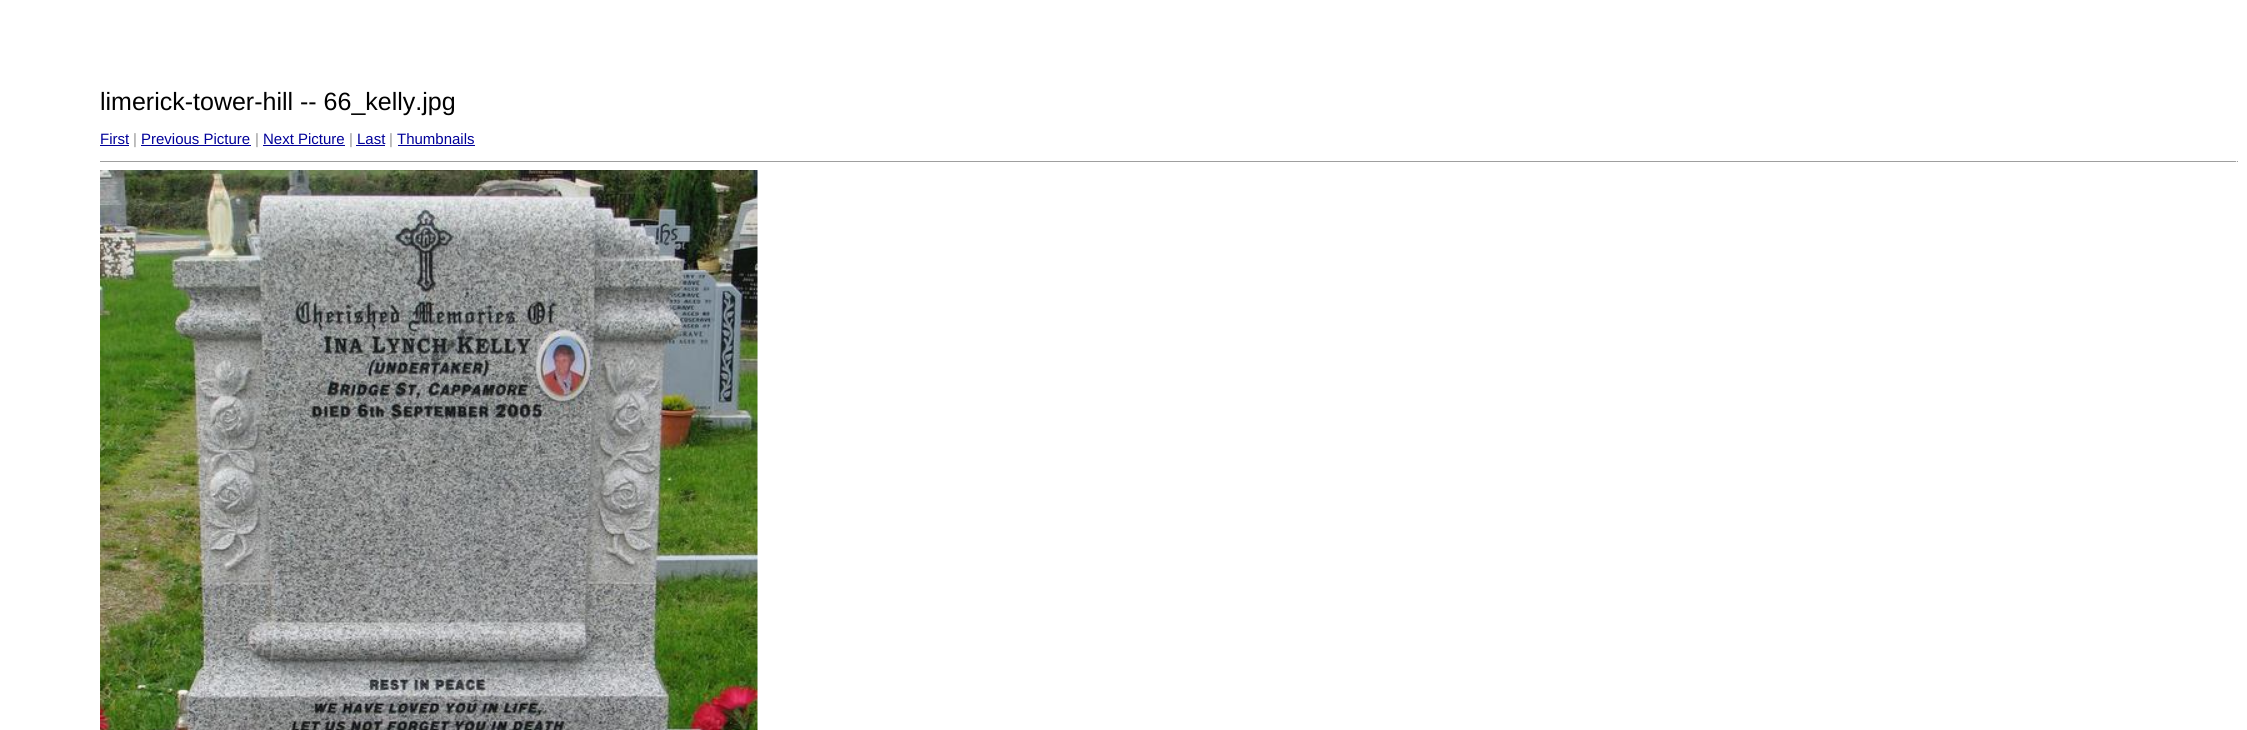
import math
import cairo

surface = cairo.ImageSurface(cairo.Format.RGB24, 2247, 730)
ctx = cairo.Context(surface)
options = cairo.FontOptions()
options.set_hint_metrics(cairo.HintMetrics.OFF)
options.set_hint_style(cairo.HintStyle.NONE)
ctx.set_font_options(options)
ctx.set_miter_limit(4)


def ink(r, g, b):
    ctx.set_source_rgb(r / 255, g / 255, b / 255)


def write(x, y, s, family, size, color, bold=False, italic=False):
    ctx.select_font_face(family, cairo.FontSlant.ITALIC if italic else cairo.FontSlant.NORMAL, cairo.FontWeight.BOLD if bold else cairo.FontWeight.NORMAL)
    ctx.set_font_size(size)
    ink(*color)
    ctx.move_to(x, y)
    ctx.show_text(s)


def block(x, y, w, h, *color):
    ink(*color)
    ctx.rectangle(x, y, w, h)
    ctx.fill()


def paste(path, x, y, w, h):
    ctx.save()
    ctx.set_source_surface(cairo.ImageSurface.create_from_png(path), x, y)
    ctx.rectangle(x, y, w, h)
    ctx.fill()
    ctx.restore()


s1 = dict(family="Liberation Sans", size=25, color=(0, 0, 0))
s2 = dict(family="Liberation Sans", size=15, color=(0, 0, 153))
s3 = dict(family="Liberation Sans", size=15, color=(151, 151, 151))

ink(255, 255, 255)
ctx.paint()
write(100, 110, "limerick-tower-hill -- 66_kelly.jpg", **s1)
write(100, 144, "First", **s2)
block(100, 145, 29, 1, 0, 0, 153)
write(133, 144, "|", **s3)
write(141, 144, "Previous Picture", **s2)
block(141, 145, 110, 1, 0, 0, 153)
write(255, 144, "|", **s3)
write(263, 144, "Next Picture", **s2)
block(263, 145, 82, 1, 0, 0, 153)
write(349, 144, "|", **s3)
write(357, 144, "Last", **s2)
block(356, 145, 29, 1, 0, 0, 153)
write(389, 144, "|", **s3)
write(397, 144, "Thumbnails", **s2)
block(398, 145, 77, 1, 0, 0, 153)
block(100, 161, 2138, 1, 159, 159, 159)
block(2236, 161, 1, 1, 238, 238, 238)
paste("pic1.png", 100, 170, 658, 560)
surface.write_to_png("screenshot.png")
